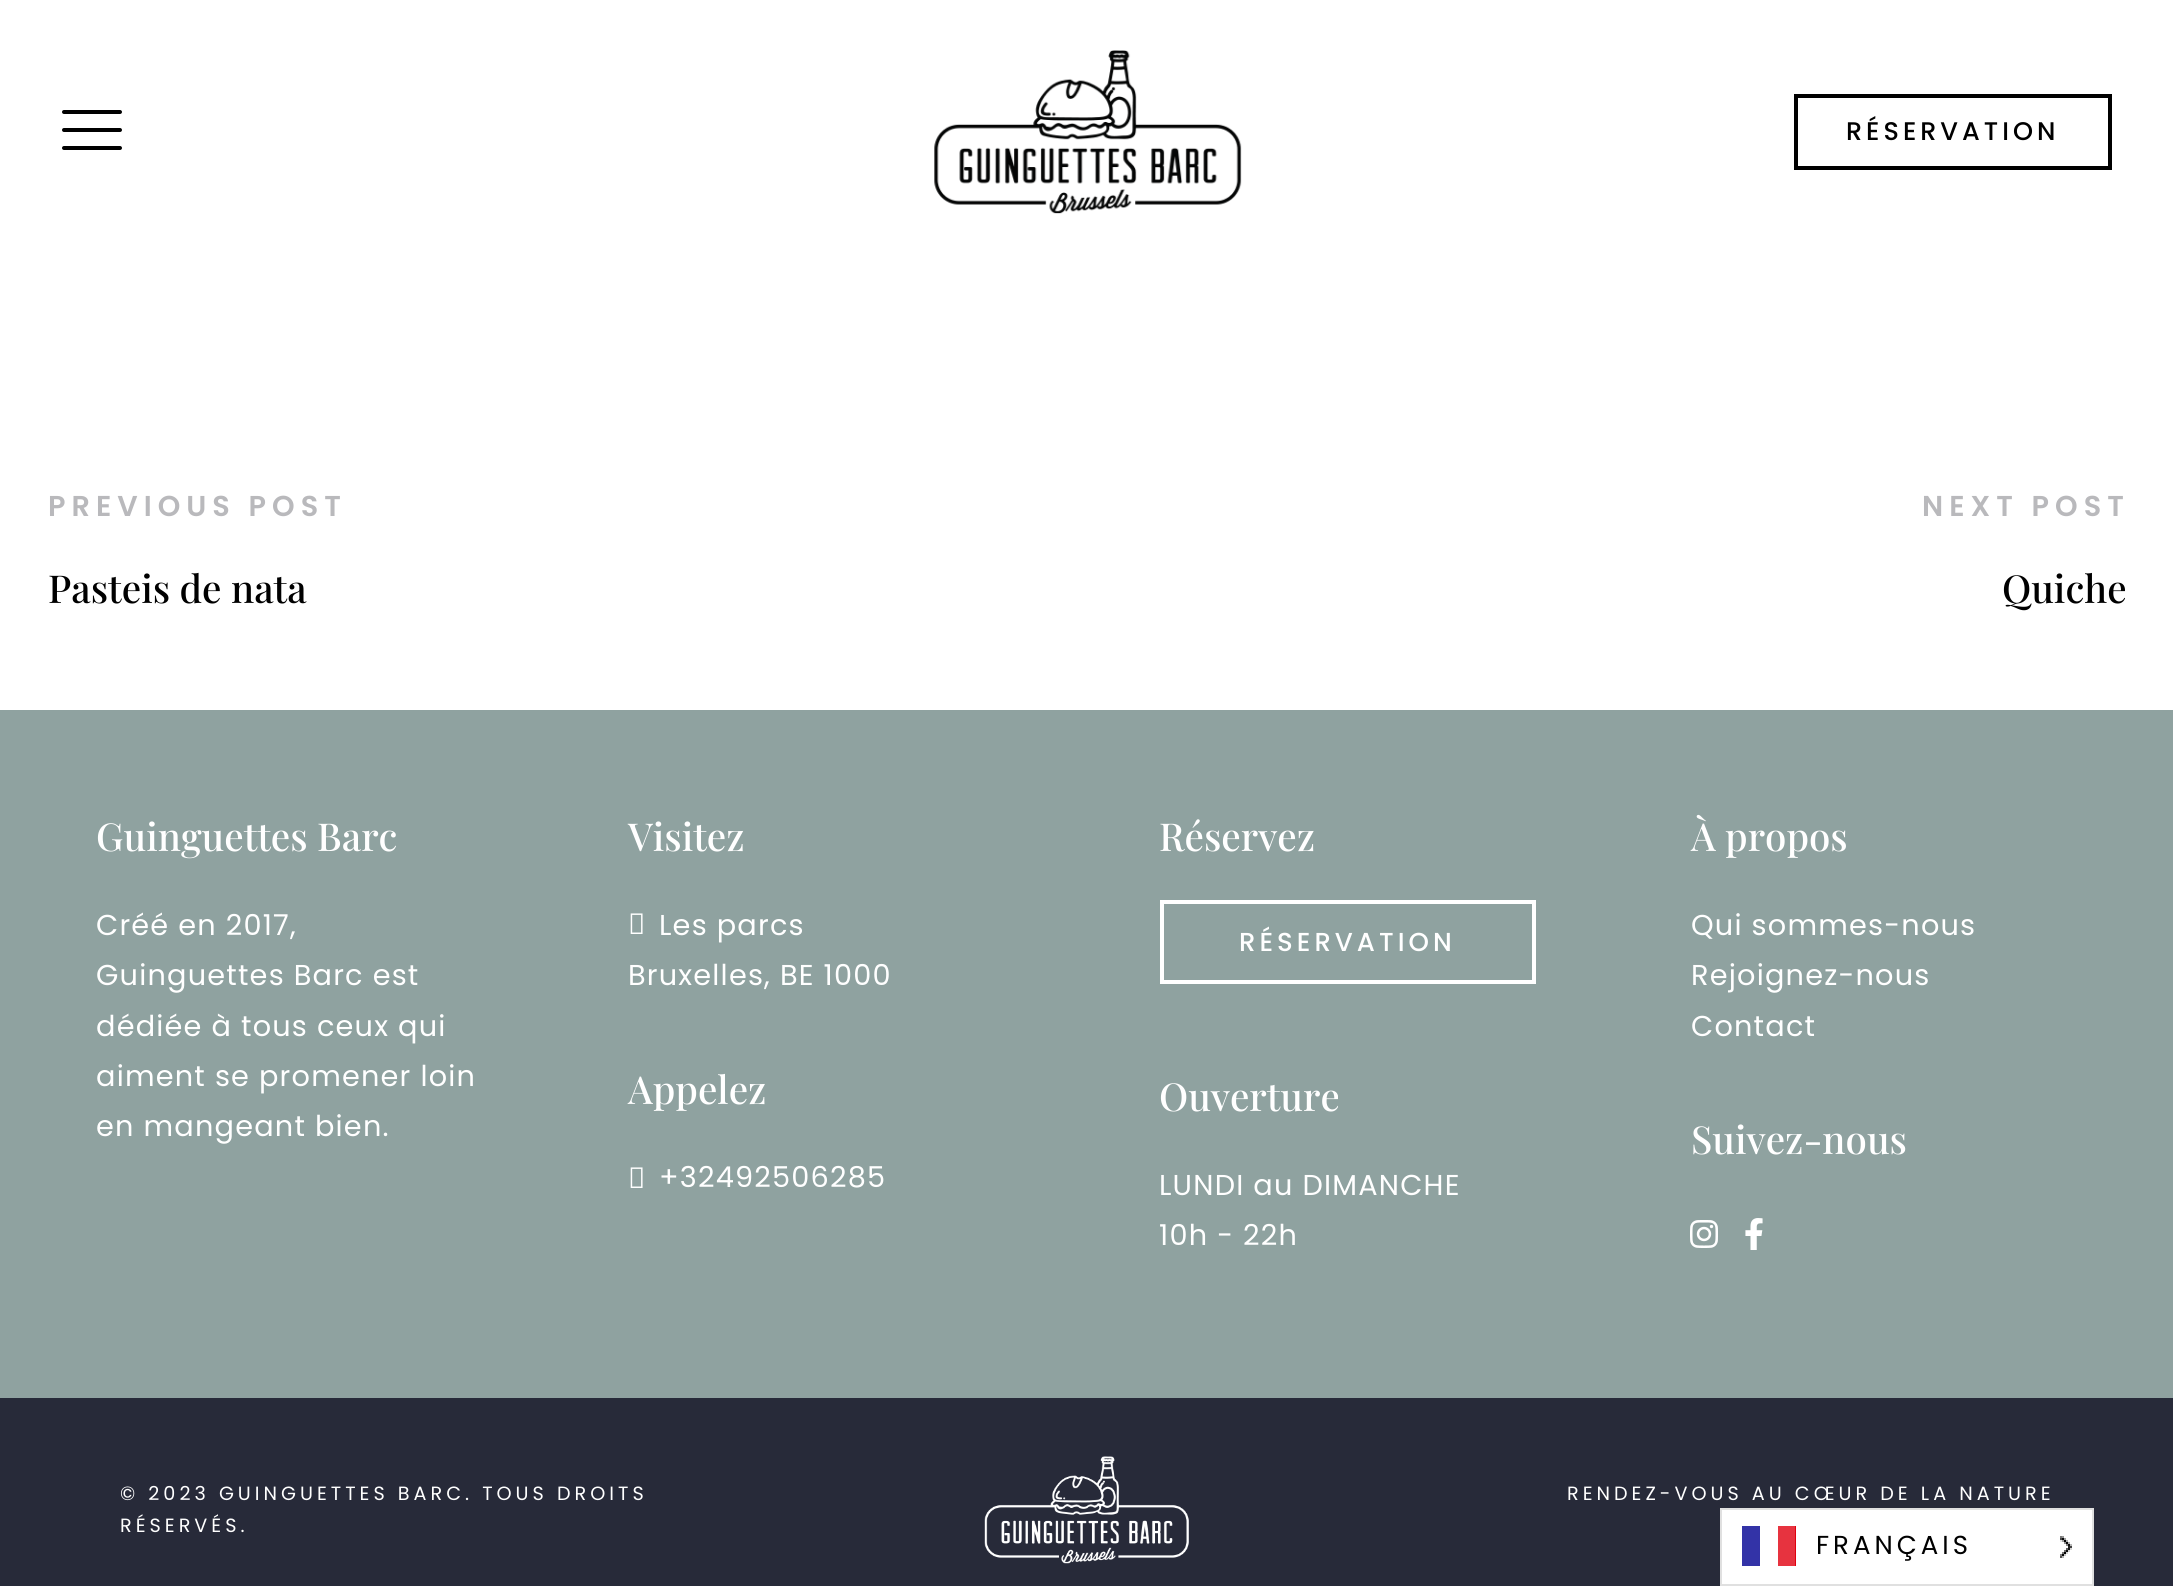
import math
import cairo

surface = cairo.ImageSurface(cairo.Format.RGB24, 2173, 1586)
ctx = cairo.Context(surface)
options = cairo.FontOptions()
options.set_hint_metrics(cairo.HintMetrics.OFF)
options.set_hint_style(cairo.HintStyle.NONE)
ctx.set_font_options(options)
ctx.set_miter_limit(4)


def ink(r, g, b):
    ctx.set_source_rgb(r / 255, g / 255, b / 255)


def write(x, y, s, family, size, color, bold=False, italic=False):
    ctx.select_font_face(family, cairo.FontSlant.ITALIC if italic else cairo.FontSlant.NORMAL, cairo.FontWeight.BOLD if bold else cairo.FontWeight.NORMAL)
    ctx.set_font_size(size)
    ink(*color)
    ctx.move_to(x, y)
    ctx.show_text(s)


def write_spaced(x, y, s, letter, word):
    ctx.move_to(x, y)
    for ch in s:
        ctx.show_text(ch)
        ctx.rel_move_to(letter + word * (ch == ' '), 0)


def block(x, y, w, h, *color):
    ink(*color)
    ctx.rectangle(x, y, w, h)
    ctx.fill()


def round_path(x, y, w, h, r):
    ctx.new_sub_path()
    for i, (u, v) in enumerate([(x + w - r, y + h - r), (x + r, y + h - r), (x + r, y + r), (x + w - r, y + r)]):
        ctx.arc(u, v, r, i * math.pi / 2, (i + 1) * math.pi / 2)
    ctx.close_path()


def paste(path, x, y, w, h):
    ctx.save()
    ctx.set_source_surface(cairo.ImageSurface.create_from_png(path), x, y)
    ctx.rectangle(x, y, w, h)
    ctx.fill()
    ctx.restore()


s1 = dict(family="Playfair Display Medium", size=38.5, color=(0, 0, 0))
s2 = dict(family="Playfair Display Medium", size=38.5, color=(255, 255, 255))

ink(255, 255, 255)
ctx.paint()
ink(0, 0, 0)
round_path(62, 128, 60, 4, 2)
ctx.fill()
round_path(62, 110, 60, 4, 2)
ctx.fill()
round_path(62, 146, 60, 4, 2)
ctx.fill()
paste("pic1.png", 934, 50, 308, 164)
ctx.rectangle(1796, 96, 314, 72)
ctx.set_line_width(4)
ctx.stroke()
ctx.select_font_face("Poppins Medium")
ctx.set_font_size(25.5)
write_spaced(1846, 140, "RÉSERVATION", 4, 0)
ctx.select_font_face("Poppins SemiBold")
ctx.set_font_size(28.75)
ink(185, 185, 188)
write_spaced(48, 516, "PREVIOUS POST", 6, 0)
write(48, 603, "Pasteis de nata", **s1)
ctx.select_font_face("Poppins SemiBold")
ctx.set_font_size(28.75)
ink(185, 185, 188)
write_spaced(1922, 516, "NEXT POST", 6, 0)
write(2002, 603, "Quiche", **s1)
block(0, 710, 2173, 688, 143, 162, 160)
write(96, 851, "Guinguettes Barc", **s2)
ctx.select_font_face("Poppins")
ctx.set_font_size(28.75)
write_spaced(96, 935, "Créé en 2017,", 1.2, 0)
write_spaced(96, 985, "Guinguettes Barc est", 1.2, 0)
write_spaced(96, 1036, "dédiée à tous ceux qui", 1.2, 0)
write_spaced(96, 1086, "aiment se promener loin", 1.2, 0)
write_spaced(96, 1136, "en mangeant bien.", 1.2, 0)
write(628, 851, "Visitez", **s2)
paste("pic2.png", 630, 913, 13, 21)
ctx.select_font_face("Poppins")
ctx.set_font_size(28.75)
write_spaced(659, 935, "Les parcs", 1.2, 0)
write_spaced(628, 985, "Bruxelles, BE 1000", 1.2, 0)
write(628, 1104, "Appelez", **s2)
paste("pic2.png", 630, 1167, 13, 21)
ctx.select_font_face("Poppins")
ctx.set_font_size(28.75)
write_spaced(659, 1187, "+32492506285", 1.2, 0)
write(1159, 851, "Réservez", **s2)
ctx.rectangle(1162, 902, 372, 80)
ctx.stroke()
ctx.select_font_face("Poppins Medium")
ctx.set_font_size(26)
write_spaced(1239, 951, "RÉSERVATION", 4, 0)
write(1159, 1111, "Ouverture", **s2)
ctx.select_font_face("Poppins")
ctx.set_font_size(28.75)
write_spaced(1159, 1195, "LUNDI au DIMANCHE", 1.2, 0)
write_spaced(1159, 1245, "10h - 22h", 1.2, 0)
write(1691, 851, "À propos", **s2)
ctx.select_font_face("Poppins")
ctx.set_font_size(28.75)
write_spaced(1691, 935, "Qui sommes-nous", 1.2, 0)
write_spaced(1691, 985, "Rejoignez-nous", 1.2, 0)
write_spaced(1691, 1036, "Contact", 1.2, 0)
write(1691, 1154, "Suivez-nous", **s2)
paste("pic3.png", 1690, 1220, 28, 28)
paste("pic4.png", 1745, 1218, 18, 32)
block(0, 1398, 2173, 188, 39, 42, 57)
ctx.select_font_face("Poppins")
ctx.set_font_size(19.2)
ink(255, 255, 255)
write_spaced(120, 1500, "© 2023 GUINGUETTES BARC. TOUS DROITS", 4, 0)
write_spaced(120, 1532, "RÉSERVÉS.", 4, 0)
paste("pic5.png", 984, 1456, 205, 108)
write_spaced(1567, 1500, "RENDEZ-VOUS AU CŒUR DE LA NATURE", 4, 0)
ctx.rectangle(1721, 1509, 372, 76)
ctx.fill_preserve()
ink(224, 224, 224)
ctx.set_line_width(2)
ctx.stroke()
block(1742, 1526, 18, 40, 51, 51, 167)
block(1795, 1526, 1, 40, 225, 0, 15)
block(1778, 1526, 17, 40, 231, 51, 63)
ctx.set_font_size(26)
ink(0, 0, 0)
write_spaced(1816, 1554, "FRANÇAIS", 4, 0)
paste("pic6.png", 2060, 1536, 12, 22)
surface.write_to_png("screenshot.png")
